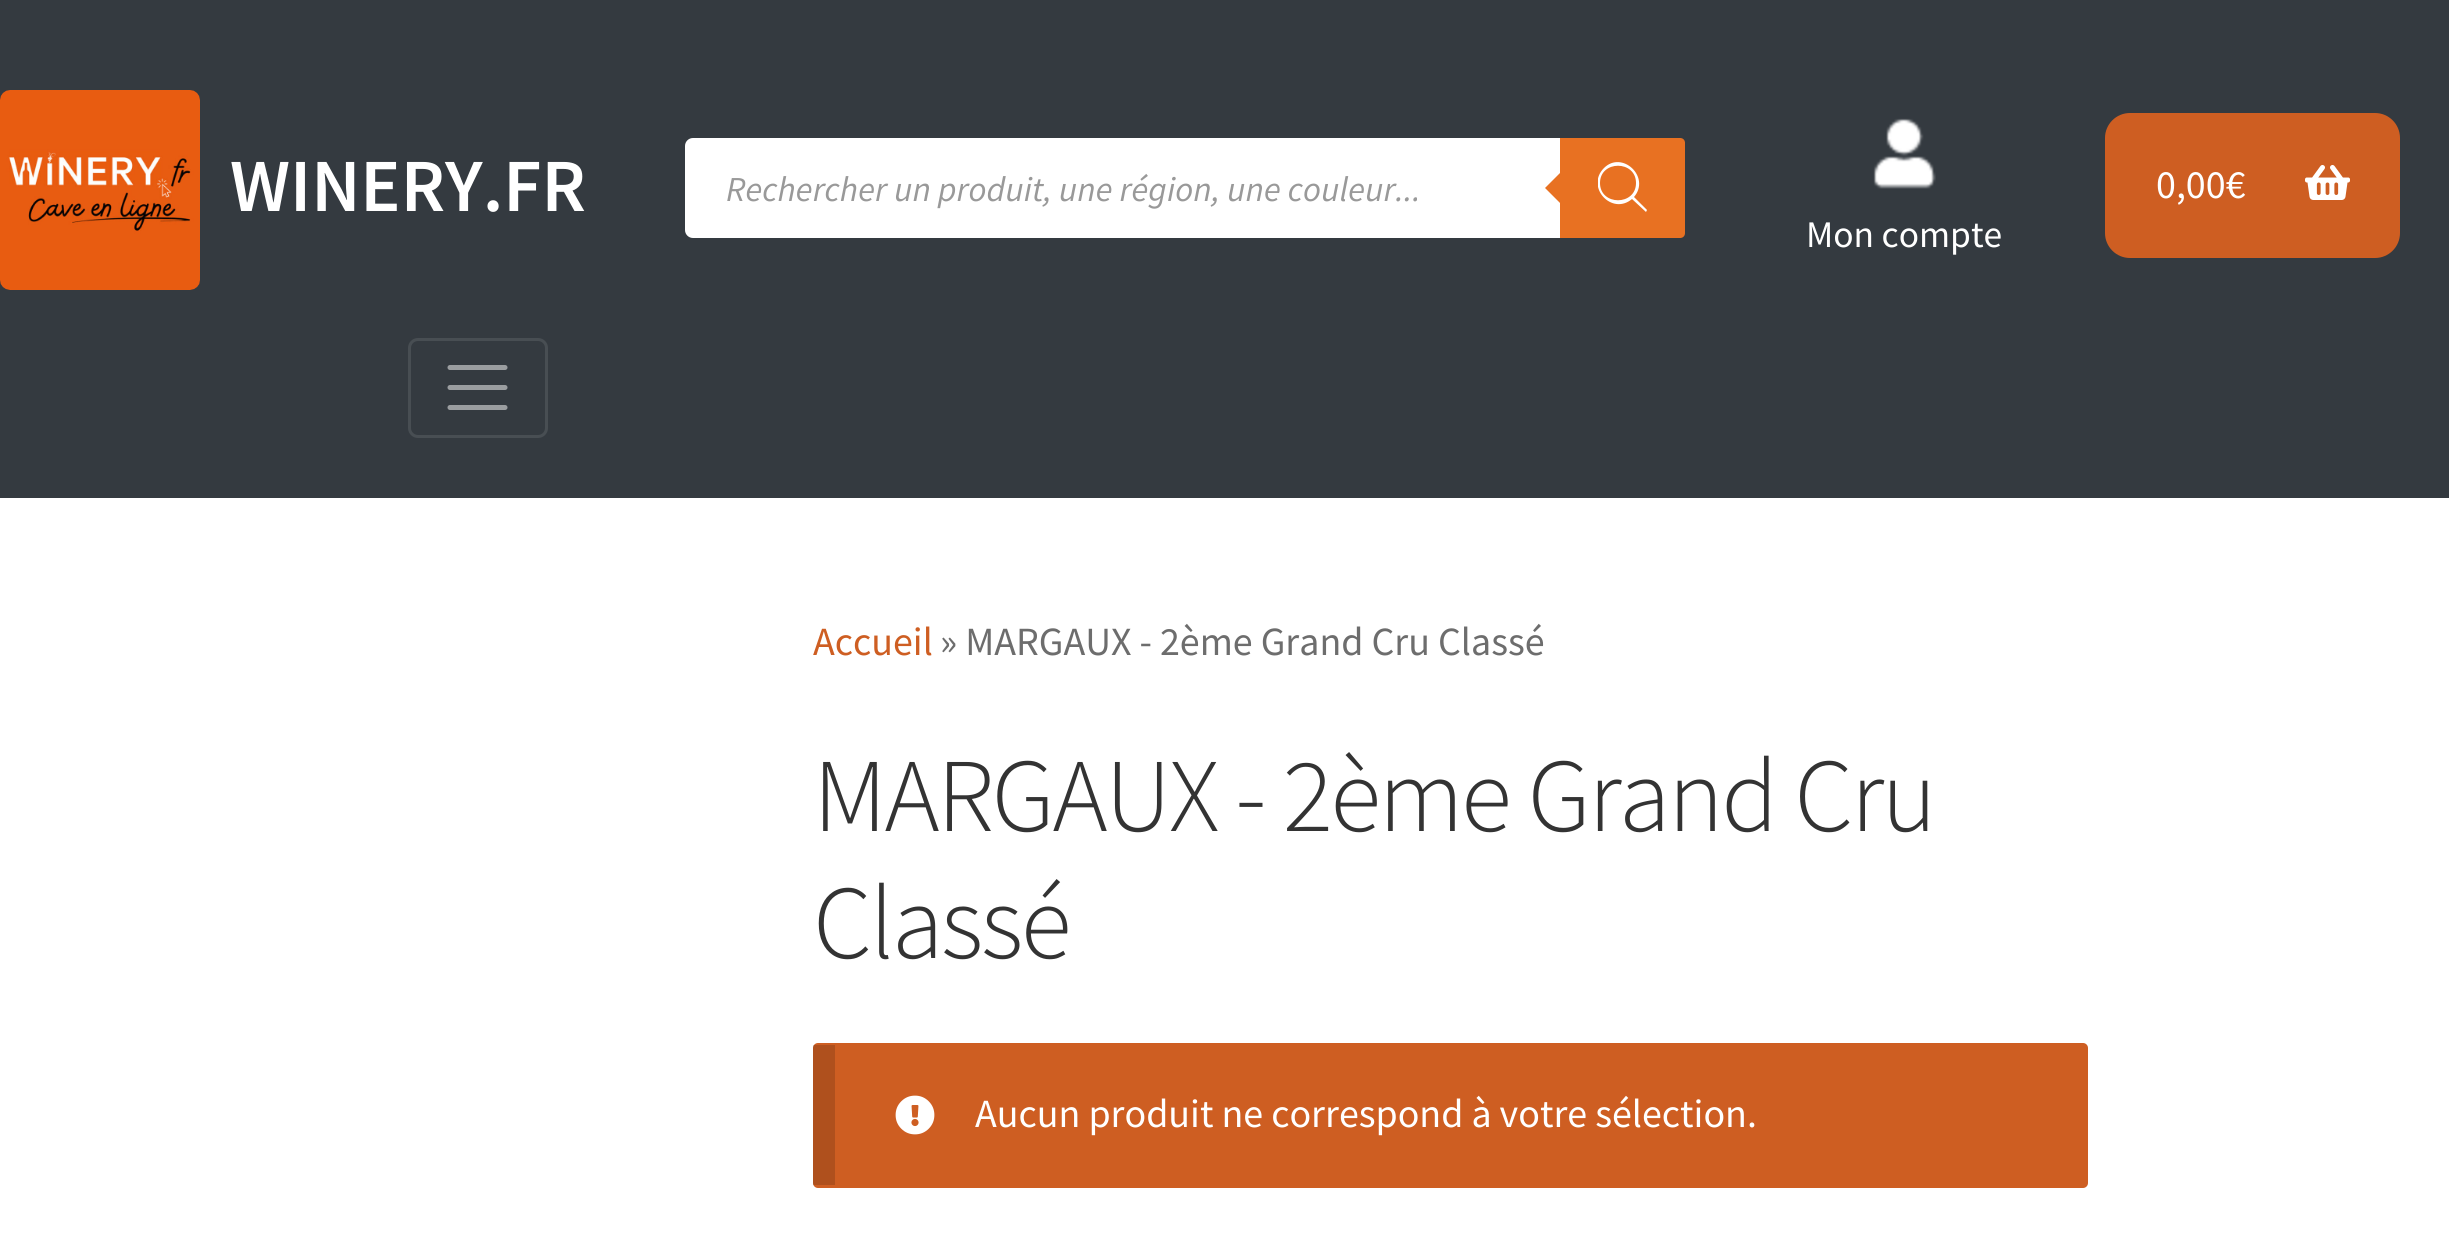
import math
import cairo

surface = cairo.ImageSurface(cairo.Format.RGB24, 2449, 1246)
ctx = cairo.Context(surface)
options = cairo.FontOptions()
options.set_hint_metrics(cairo.HintMetrics.OFF)
options.set_hint_style(cairo.HintStyle.NONE)
ctx.set_font_options(options)
ctx.set_miter_limit(4)


def ink(r, g, b):
    ctx.set_source_rgb(r / 255, g / 255, b / 255)


def write(x, y, s, family, size, color, bold=False, italic=False):
    ctx.select_font_face(family, cairo.FontSlant.ITALIC if italic else cairo.FontSlant.NORMAL, cairo.FontWeight.BOLD if bold else cairo.FontWeight.NORMAL)
    ctx.set_font_size(size)
    ink(*color)
    ctx.move_to(x, y)
    ctx.show_text(s)


def write_spaced(x, y, s, letter, word):
    ctx.move_to(x, y)
    for ch in s:
        ctx.show_text(ch)
        ctx.rel_move_to(letter + word * (ch == ' '), 0)


def block(x, y, w, h, *color):
    ink(*color)
    ctx.rectangle(x, y, w, h)
    ctx.fill()


def round_path(x, y, w, h, r):
    ctx.new_sub_path()
    for i, (u, v) in enumerate([(x + w - r, y + h - r), (x + r, y + h - r), (x + r, y + r), (x + w - r, y + r)]):
        ctx.arc(u, v, r, i * math.pi / 2, (i + 1) * math.pi / 2)
    ctx.close_path()


def paste(path, x, y, w, h):
    ctx.save()
    ctx.set_source_surface(cairo.ImageSurface.create_from_png(path), x, y)
    ctx.rectangle(x, y, w, h)
    ctx.fill()
    ctx.restore()


s1 = dict(family="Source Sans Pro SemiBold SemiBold", size=75, color=(255, 255, 255))
s2 = dict(family="Source Sans Pro", size=35, color=(153, 153, 153), italic=True)
s3 = dict(family="Source Sans Pro", size=37.5, color=(255, 255, 255))
s4 = dict(family="Source Sans Pro", size=40, color=(255, 255, 255))
s5 = dict(family="Source Sans Pro", size=40, color=(206, 94, 34))
s6 = dict(family="Source Sans Pro", size=40, color=(109, 109, 109))

ink(255, 255, 255)
ctx.paint()
block(0, 0, 2449, 498, 52, 58, 64)
round_path(409.5, 339.5, 137, 97, 8.5)
ink(72, 78, 83)
ctx.set_line_width(3)
ctx.stroke()
ctx.new_path()
ctx.move_to(450, 367.5)
ctx.line_to(505, 367.5)
ctx.move_to(450, 387.5)
ctx.line_to(505, 387.5)
ctx.move_to(450, 407.5)
ctx.line_to(505, 407.5)
ink(154, 157, 160)
ctx.set_line_width(5)
ctx.set_line_cap(cairo.LineCap.ROUND)
ctx.stroke()
paste("pic1.png", 0, 90, 200, 200)
write(230, 211, "WINERY.FR", **s1)
round_path(686.5, 139.5, 997, 97, 6.5)
ctx.fill_preserve()
ctx.set_line_width(3)
ctx.set_line_cap(cairo.LineCap.BUTT)
ctx.stroke()
write(726, 201, "Rechercher un produit, une région, une couleur...", **s2)
ink(232, 113, 34)
ctx.new_path()
ctx.move_to(1560, 138)
ctx.line_to(1680, 138)
ctx.curve_to(1683, 138, 1685, 140, 1685, 143)
ctx.line_to(1685, 233)
ctx.curve_to(1685, 236, 1683, 238, 1680, 238)
ctx.line_to(1560, 238)
ctx.close_path()
ctx.fill()
ctx.new_path()
ctx.move_to(1565, 168)
ctx.line_to(1565, 208)
ctx.line_to(1545, 188)
ctx.close_path()
ctx.fill()
ctx.save()
ctx.rectangle(1598, 155, 50, 65)
ctx.clip()
ink(255, 255, 255)
ctx.new_path()
ctx.move_to(1647, 210)
ctx.line_to(1634, 197)
ctx.curve_to(1651, 177, 1622, 150, 1604, 168)
ctx.curve_to(1585, 187, 1612, 216, 1632, 199)
ctx.line_to(1646, 212)
ctx.close_path()
ctx.move_to(1600, 183)
ctx.curve_to(1600, 160, 1636, 160, 1636, 183)
ctx.curve_to(1636, 206, 1600, 206, 1600, 183)
ctx.close_path()
ctx.fill()
ctx.restore()
paste("pic2.png", 1873, 118, 63, 71)
write(1806, 247, "Mon compte", **s3)
ink(206, 94, 34)
round_path(2105, 113, 295, 145, 25)
ctx.fill()
write(2156, 198, "0,00€", **s4)
paste("pic3.png", 2305, 165, 45, 35)
write(813, 655, "Accueil", **s5)
write(940, 655, "» MARGAUX - 2ème Grand Cru Classé", **s6)
ctx.select_font_face("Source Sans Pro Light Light")
ctx.set_font_size(104.75)
ink(51, 51, 51)
write_spaced(813, 831, "MARGAUX - 2ème Grand Cru", -2.5, 0)
write_spaced(813, 958, "Classé", -2.5, 0)
ink(206, 94, 34)
round_path(813, 1043, 1275, 145, 5)
ctx.fill()
ctx.set_source_rgba(0, 0, 0, 0.15)
ctx.rectangle(813, 1045, 22, 140)
ctx.fill()
paste("pic4.png", 895, 1095, 40, 40)
write(975, 1127, "Aucun produit ne correspond à votre sélection.", **s4)
surface.write_to_png("screenshot.png")
